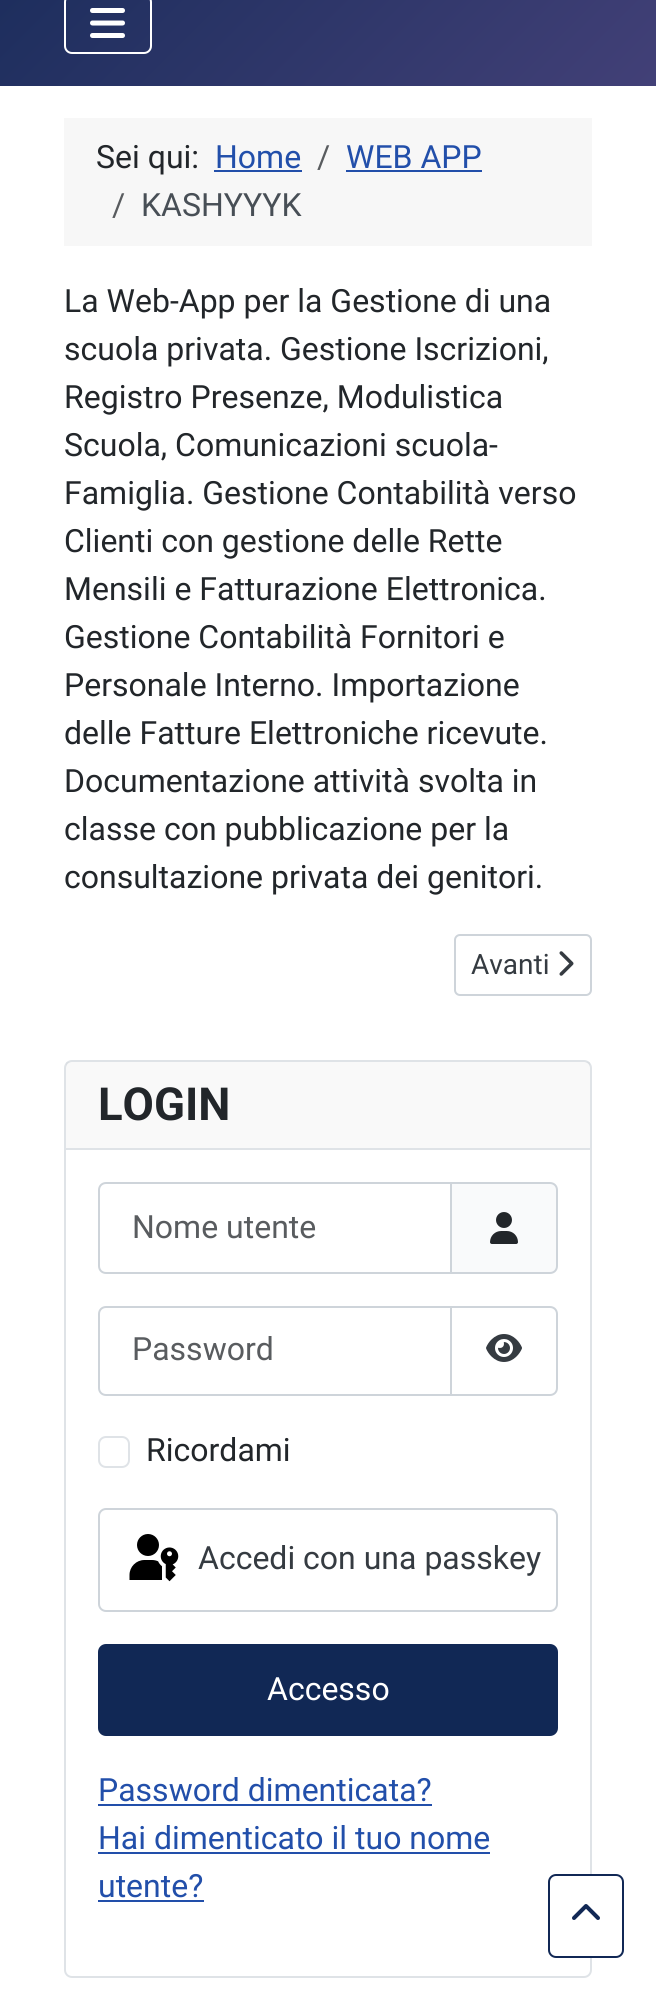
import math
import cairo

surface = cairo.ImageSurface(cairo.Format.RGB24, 656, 1989)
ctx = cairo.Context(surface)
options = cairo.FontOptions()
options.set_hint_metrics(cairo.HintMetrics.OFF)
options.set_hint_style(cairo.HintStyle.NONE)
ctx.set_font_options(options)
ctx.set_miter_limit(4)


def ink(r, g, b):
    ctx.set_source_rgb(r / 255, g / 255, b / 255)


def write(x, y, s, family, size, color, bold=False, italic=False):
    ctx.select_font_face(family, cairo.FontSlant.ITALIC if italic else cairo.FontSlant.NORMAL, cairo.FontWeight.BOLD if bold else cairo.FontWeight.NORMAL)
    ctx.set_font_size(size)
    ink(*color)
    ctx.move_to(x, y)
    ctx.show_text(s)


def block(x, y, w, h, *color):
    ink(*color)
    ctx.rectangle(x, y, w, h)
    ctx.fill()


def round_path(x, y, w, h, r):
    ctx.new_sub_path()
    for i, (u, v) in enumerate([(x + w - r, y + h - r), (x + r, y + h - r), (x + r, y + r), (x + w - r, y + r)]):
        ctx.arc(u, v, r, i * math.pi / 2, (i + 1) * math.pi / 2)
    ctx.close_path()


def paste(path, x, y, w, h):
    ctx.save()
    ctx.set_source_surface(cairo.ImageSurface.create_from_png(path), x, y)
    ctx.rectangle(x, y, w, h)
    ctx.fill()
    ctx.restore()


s1 = dict(family="Roboto", size=32, color=(34, 38, 42))
s2 = dict(family="Roboto", size=32, color=(34, 79, 170))
s3 = dict(family="Roboto", size=32, color=(89, 92, 95))
s4 = dict(family="Roboto", size=32, color=(72, 79, 86))
s5 = dict(family="Roboto", size=28, color=(53, 59, 65))
s6 = dict(family="Roboto", size=45.5, color=(34, 38, 42), bold=True)
s7 = dict(family="Roboto", size=32, color=(53, 59, 65))
s8 = dict(family="Roboto", size=32, color=(255, 255, 255))

ink(255, 255, 255)
ctx.paint()
gradient = cairo.LinearGradient(80, -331, 577, 165)
gradient.add_color_stop_rgba(0, 0.067, 0.157, 0.333, 1)
gradient.add_color_stop_rgba(1, 0.259, 0.251, 0.467, 1)
ctx.set_source(gradient)
ctx.rectangle(0, 0, 656, 86)
ctx.fill()
round_path(65, -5, 86, 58, 7)
ink(255, 255, 255)
ctx.stroke()
paste("pic1.png", 90, 8, 35, 30)
block(64, 118, 528, 128, 247, 247, 247)
write(96, 168, "Sei qui:", **s1)
write(215, 168, "Home", **s2)
block(214, 170, 88, 2, 34, 79, 170)
write(317, 168, "/", **s3)
write(346, 168, "WEB APP", **s2)
block(346, 170, 136, 2, 34, 79, 170)
write(112, 216, "/", **s3)
write(141, 216, "KASHYYYK", **s4)
write(64, 312, "La Web-App per la Gestione di una", **s1)
write(64, 360, "scuola privata. Gestione Iscrizioni,", **s1)
write(64, 408, "Registro Presenze, Modulistica", **s1)
write(64, 456, "Scuola, Comunicazioni scuola-", **s1)
write(64, 504, "Famiglia. Gestione Contabilità verso", **s1)
write(64, 552, "Clienti con gestione delle Rette", **s1)
write(64, 600, "Mensili e Fatturazione Elettronica.", **s1)
write(64, 648, "Gestione Contabilità Fornitori e", **s1)
write(64, 696, "Personale Interno. Importazione", **s1)
write(64, 744, "delle Fatture Elettroniche ricevute.", **s1)
write(64, 792, "Documentazione attività svolta in", **s1)
write(64, 840, "classe con pubblicazione per la", **s1)
write(64, 888, "consultazione privata dei genitori.", **s1)
round_path(455, 935, 136, 60, 5)
ink(206, 212, 218)
ctx.stroke()
write(471, 974, "Avanti", **s5)
paste("pic2.png", 559, 951, 15, 25)
round_path(65, 1061, 526, 916, 7)
ink(223, 227, 231)
ctx.stroke()
ctx.set_source_rgba(0.133, 0.149, 0.165, 0.03)
ctx.rectangle(66, 1062, 524, 86)
ctx.fill()
block(66, 1148, 524, 2, 223, 227, 231)
write(98, 1120, "LOGIN", **s6)
ink(249, 250, 251)
ctx.new_path()
ctx.move_to(451, 1183)
ctx.line_to(550, 1183)
ctx.curve_to(554, 1183, 557, 1186, 557, 1190)
ctx.line_to(557, 1266)
ctx.curve_to(557, 1270, 554, 1273, 550, 1273)
ctx.line_to(451, 1273)
ctx.close_path()
ctx.fill_preserve()
ink(206, 212, 218)
ctx.stroke()
ctx.new_path()
ctx.move_to(106, 1183)
ctx.line_to(451, 1183)
ctx.line_to(451, 1273)
ctx.line_to(106, 1273)
ctx.curve_to(102, 1273, 99, 1270, 99, 1266)
ctx.line_to(99, 1190)
ctx.curve_to(99, 1186, 102, 1183, 106, 1183)
ctx.close_path()
ctx.stroke()
write(132, 1238, "Nome utente", **s3)
paste("pic3.png", 490, 1212, 28, 32)
ctx.new_path()
ctx.move_to(106, 1307)
ctx.line_to(451, 1307)
ctx.line_to(451, 1395)
ctx.line_to(106, 1395)
ctx.curve_to(102, 1395, 99, 1392, 99, 1388)
ctx.line_to(99, 1314)
ctx.curve_to(99, 1310, 102, 1307, 106, 1307)
ctx.close_path()
ink(206, 212, 218)
ctx.stroke()
write(132, 1360, "Password", **s3)
ink(255, 255, 255)
ctx.new_path()
ctx.move_to(451, 1307)
ctx.line_to(550, 1307)
ctx.curve_to(554, 1307, 557, 1310, 557, 1314)
ctx.line_to(557, 1388)
ctx.curve_to(557, 1392, 554, 1395, 550, 1395)
ctx.line_to(451, 1395)
ctx.close_path()
ctx.fill_preserve()
ink(206, 212, 218)
ctx.stroke()
paste("pic4.png", 486, 1334, 36, 28)
round_path(99, 1437, 30, 30, 7)
ink(223, 227, 231)
ctx.stroke()
write(146, 1461, "Ricordami", **s1)
round_path(99, 1509, 458, 102, 7)
ink(206, 212, 218)
ctx.stroke()
paste("pic5.png", 129, 1534, 50, 48)
write(198, 1569, "Accedi con una passkey", **s7)
ink(17, 40, 85)
round_path(99, 1645, 458, 90, 7)
ctx.fill_preserve()
ctx.stroke()
write(267, 1700, "Accesso", **s8)
write(98, 1801, "Password dimenticata?", **s2)
block(98, 1804, 334, 2, 34, 79, 170)
write(98, 1849, "Hai dimenticato il tuo nome", **s2)
block(98, 1852, 392, 2, 34, 79, 170)
write(98, 1897, "utente?", **s2)
block(98, 1900, 106, 2, 34, 79, 170)
ink(255, 255, 255)
round_path(549, 1875, 74, 82, 7)
ctx.fill_preserve()
ink(17, 40, 85)
ctx.stroke()
paste("pic6.png", 572, 1904, 28, 16)
surface.write_to_png("screenshot.png")
